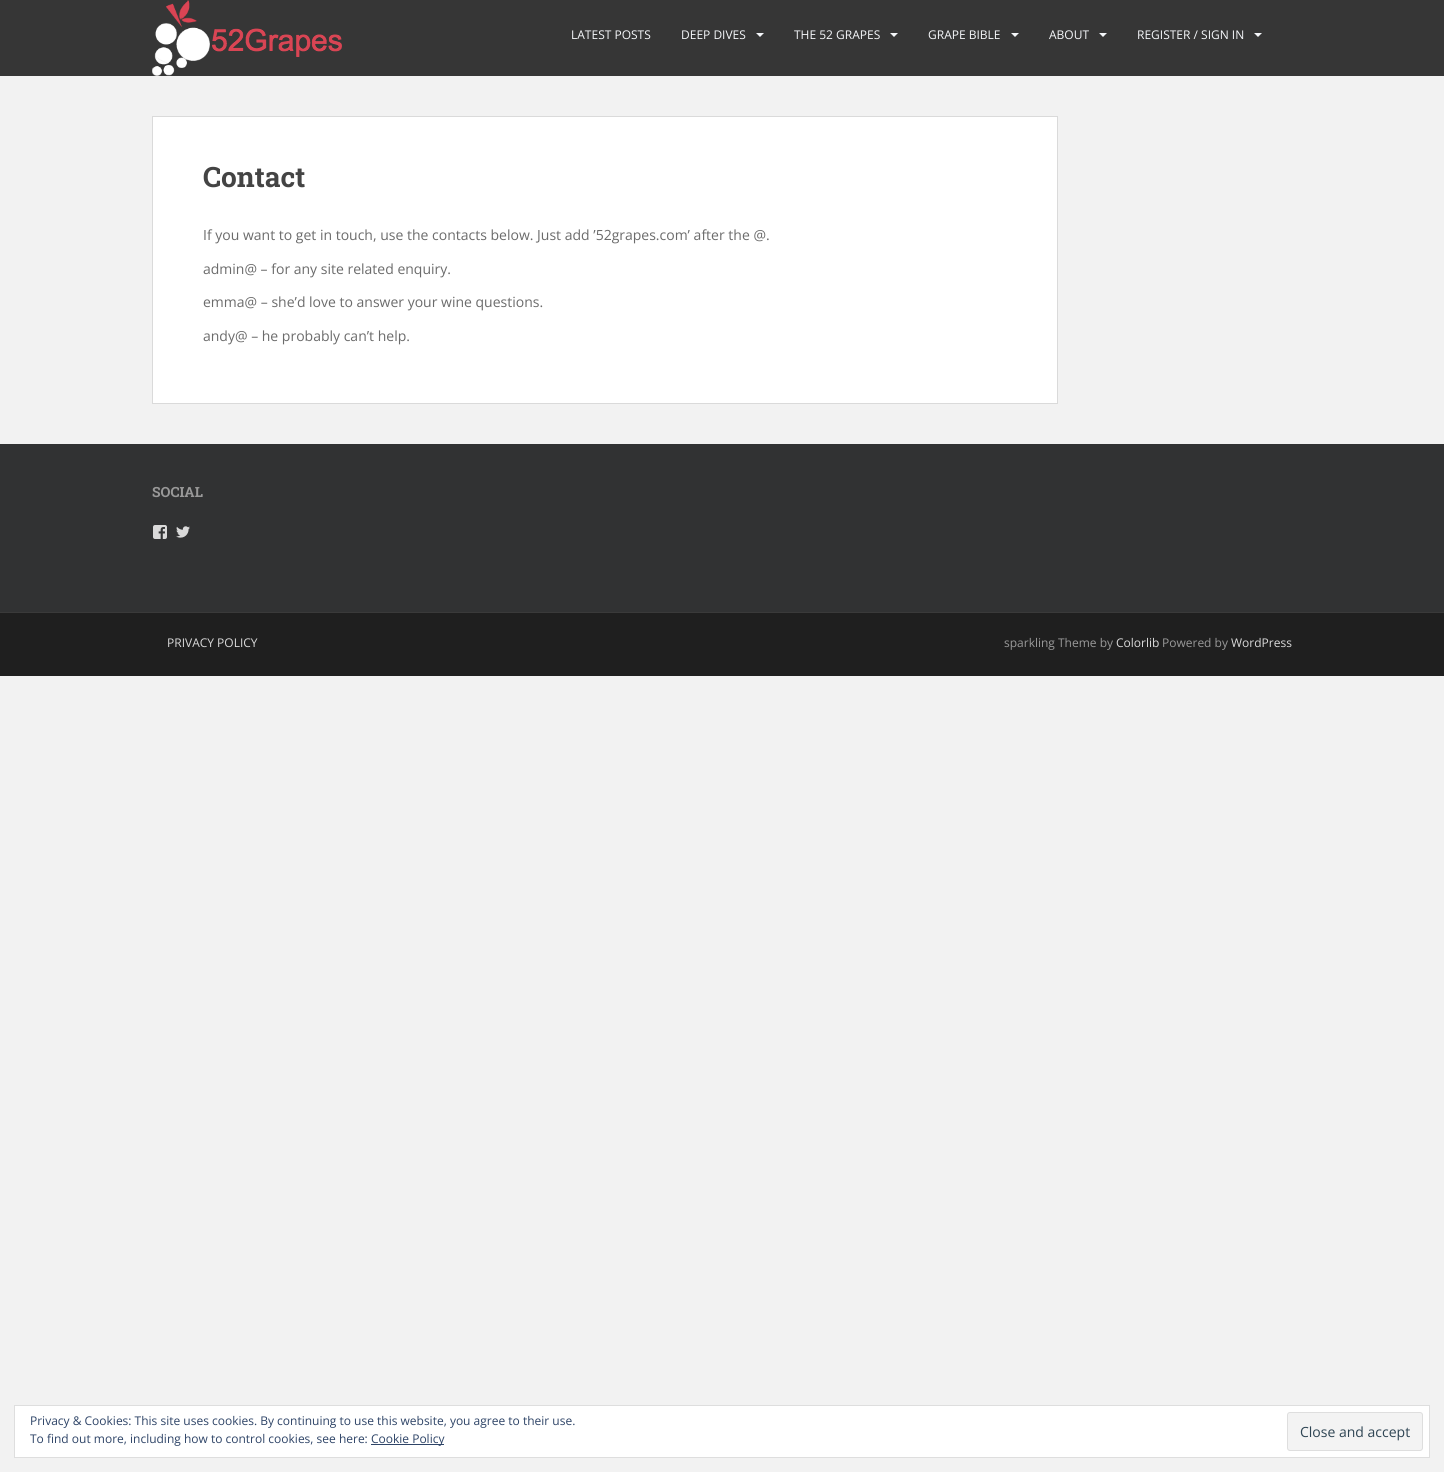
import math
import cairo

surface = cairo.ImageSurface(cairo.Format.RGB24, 1444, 1472)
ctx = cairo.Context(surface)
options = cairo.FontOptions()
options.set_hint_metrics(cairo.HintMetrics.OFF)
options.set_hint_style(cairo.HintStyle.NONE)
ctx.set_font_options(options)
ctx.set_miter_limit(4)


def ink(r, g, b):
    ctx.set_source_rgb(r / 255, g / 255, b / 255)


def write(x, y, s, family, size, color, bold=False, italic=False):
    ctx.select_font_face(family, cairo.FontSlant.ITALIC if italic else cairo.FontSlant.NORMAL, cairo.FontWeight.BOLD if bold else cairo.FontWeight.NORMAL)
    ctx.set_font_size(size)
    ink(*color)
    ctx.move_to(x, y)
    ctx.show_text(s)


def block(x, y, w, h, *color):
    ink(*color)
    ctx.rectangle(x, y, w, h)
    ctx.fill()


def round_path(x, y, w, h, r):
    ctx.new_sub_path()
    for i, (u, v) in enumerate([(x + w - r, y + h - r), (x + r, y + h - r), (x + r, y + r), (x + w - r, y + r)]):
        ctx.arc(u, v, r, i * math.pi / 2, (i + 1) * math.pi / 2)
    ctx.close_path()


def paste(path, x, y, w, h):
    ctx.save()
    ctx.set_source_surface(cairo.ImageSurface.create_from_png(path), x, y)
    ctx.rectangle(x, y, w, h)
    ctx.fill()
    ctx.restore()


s1 = dict(family="Open Sans", size=12, color=(245, 247, 250))
s2 = dict(family="Roboto Slab", size=28, color=(68, 68, 68), bold=True)
s3 = dict(family="Open Sans", size=14, color=(107, 107, 107))
s4 = dict(family="Roboto Slab", size=14, color=(153, 153, 153), bold=True)
s5 = dict(family="Open Sans", size=12, color=(218, 218, 218))
s6 = dict(family="Open Sans", size=12, color=(153, 153, 153))
s7 = dict(family="Open Sans", size=12, color=(46, 68, 103))
s8 = dict(family="Open Sans", size=14, color=(46, 68, 83))

ink(242, 242, 242)
ctx.paint()
block(0, 0, 1444, 76, 54, 54, 54)
paste("pic1.png", 152, 0, 190, 76)
write(571, 39, "LATEST POSTS", **s1)
write(681, 39, "DEEP DIVES", **s1)
ctx.new_path()
ctx.move_to(756, 33)
ctx.line_to(764, 33)
ctx.line_to(760, 37)
ctx.close_path()
ctx.fill()
write(794, 39, "THE 52 GRAPES", **s1)
ctx.new_path()
ctx.move_to(890, 33)
ctx.line_to(898, 33)
ctx.line_to(894, 37)
ctx.close_path()
ctx.fill()
write(928, 39, "GRAPE BIBLE", **s1)
ctx.new_path()
ctx.move_to(1011, 33)
ctx.line_to(1019, 33)
ctx.line_to(1015, 37)
ctx.close_path()
ctx.fill()
write(1049, 39, "ABOUT", **s1)
ctx.new_path()
ctx.move_to(1099, 33)
ctx.line_to(1107, 33)
ctx.line_to(1103, 37)
ctx.close_path()
ctx.fill()
write(1137, 39, "REGISTER / SIGN IN", **s1)
ctx.new_path()
ctx.move_to(1254, 33)
ctx.line_to(1262, 33)
ctx.line_to(1258, 37)
ctx.close_path()
ctx.fill()
ink(255, 255, 255)
ctx.rectangle(152.5, 116.5, 905, 287)
ctx.fill_preserve()
ink(218, 218, 218)
ctx.set_line_width(1)
ctx.stroke()
write(203, 187, "Contact", **s2)
write(203, 240, "If you want to get in touch, use the contacts below. Just add ’52grapes.com’ after the @.", **s3)
write(203, 274, "admin@ – for any site related enquiry.", **s3)
write(203, 307, "emma@ – she’d love to answer your wine questions.", **s3)
write(203, 341, "andy@ – he probably can’t help.", **s3)
block(0, 444, 1444, 168, 49, 50, 51)
write(152, 497, "SOCIAL", **s4)
paste("pic2.png", 153, 525, 14, 14)
paste("pic3.png", 176, 526, 14, 12)
block(0, 613, 1444, 63, 31, 31, 31)
block(0, 612, 1444, 1, 58, 58, 58)
write(167, 647, "PRIVACY POLICY", **s5)
write(1004, 647, "sparkling Theme by", **s6)
write(1116, 647, "Colorlib", **s5)
write(1162, 647, "Powered by", **s6)
write(1231, 647, "WordPress", **s5)
ink(255, 255, 255)
ctx.rectangle(14.5, 1405.5, 1415, 52)
ctx.fill_preserve()
ink(222, 222, 222)
ctx.stroke()
write(30, 1425, "Privacy & Cookies: This site uses cookies. By continuing to use this website, you agree to their use.", **s7)
write(30, 1443, "To find out more, including how to control cookies, see here:", **s7)
block(371, 1444, 73, 1, 46, 68, 103)
write(371, 1443, "Cookie Policy", **s7)
ink(243, 243, 243)
round_path(1287.5, 1412.5, 135, 38, 2.5)
ctx.fill_preserve()
ink(222, 222, 222)
ctx.stroke()
write(1300, 1437, "Close and accept", **s8)
surface.write_to_png("screenshot.png")
